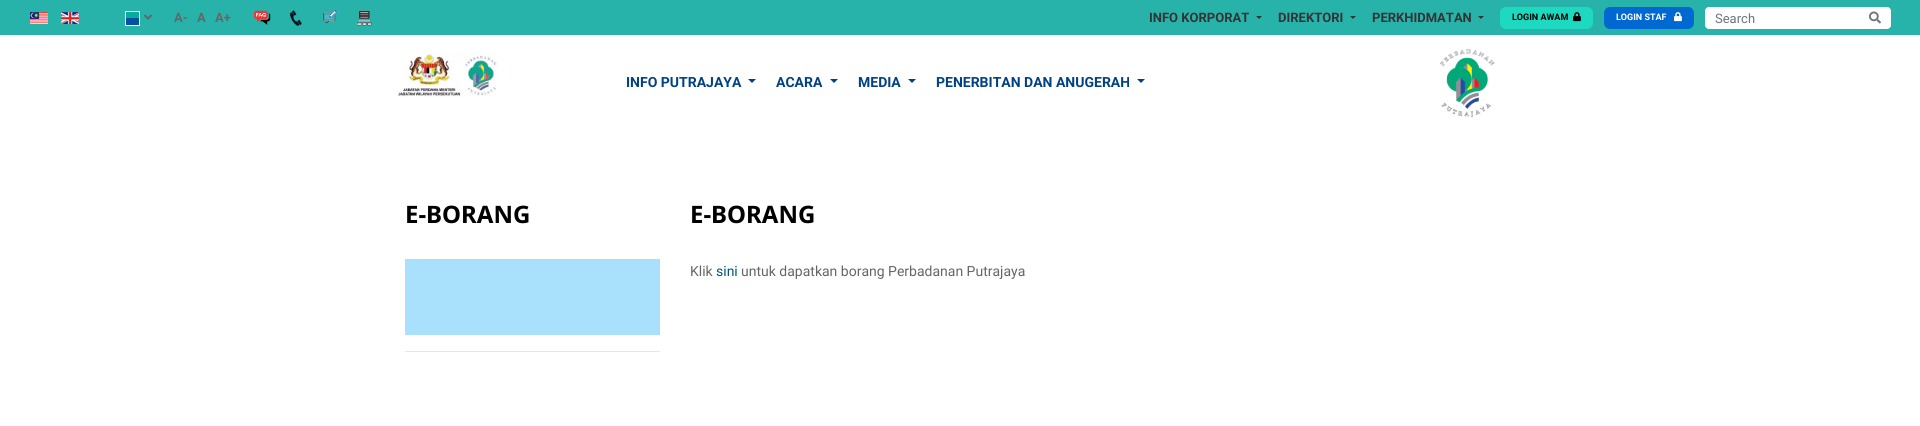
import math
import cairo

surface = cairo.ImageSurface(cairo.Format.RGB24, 1920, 426)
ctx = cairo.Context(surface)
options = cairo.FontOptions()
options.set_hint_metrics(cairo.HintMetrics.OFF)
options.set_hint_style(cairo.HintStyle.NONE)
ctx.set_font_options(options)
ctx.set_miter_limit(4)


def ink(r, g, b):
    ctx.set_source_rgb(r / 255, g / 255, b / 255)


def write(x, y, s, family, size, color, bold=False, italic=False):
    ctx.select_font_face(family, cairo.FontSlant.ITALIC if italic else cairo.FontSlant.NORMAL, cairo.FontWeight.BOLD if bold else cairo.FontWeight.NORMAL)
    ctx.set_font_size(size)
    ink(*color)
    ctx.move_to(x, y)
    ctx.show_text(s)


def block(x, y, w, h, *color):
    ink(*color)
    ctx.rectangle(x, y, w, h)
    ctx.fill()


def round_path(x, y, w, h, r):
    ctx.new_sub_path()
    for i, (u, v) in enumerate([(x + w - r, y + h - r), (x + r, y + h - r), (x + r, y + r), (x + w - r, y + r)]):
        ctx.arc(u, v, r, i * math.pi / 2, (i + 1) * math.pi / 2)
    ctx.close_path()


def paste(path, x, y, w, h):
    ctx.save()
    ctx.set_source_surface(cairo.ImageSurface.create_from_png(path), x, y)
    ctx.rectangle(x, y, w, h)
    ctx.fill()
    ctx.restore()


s1 = dict(family="Roboto", size=13, color=(102, 102, 102), bold=True)
s2 = dict(family="Roboto", size=13, color=(51, 51, 51), bold=True)
s3 = dict(family="Roboto", size=9, color=(0, 0, 0), bold=True)
s4 = dict(family="Roboto", size=9, color=(255, 255, 255), bold=True)
s5 = dict(family="Roboto", size=13, color=(108, 117, 125))
s6 = dict(family="Roboto", size=14, color=(0, 65, 131), bold=True)
s7 = dict(family="Noto Sans", size=24, color=(0, 0, 0), bold=True)
s8 = dict(family="Roboto", size=14, color=(102, 102, 102))
s9 = dict(family="Roboto", size=14, color=(3, 84, 126))

ink(255, 255, 255)
ctx.paint()
block(0, 0, 1920, 35, 39, 179, 169)
paste("pic1.png", 30, 12, 18, 12)
paste("pic2.png", 61, 12, 18, 12)
paste("pic3.png", 125, 11, 15, 15)
paste("pic4.png", 144, 14, 8, 6)
write(174, 22, "A-", **s1)
write(197, 22, "A", **s1)
write(215, 22, "A+", **s1)
paste("pic5.png", 254, 10, 17, 15)
paste("pic6.png", 289, 10, 13, 16)
paste("pic7.png", 322, 9, 16, 15)
paste("pic8.png", 356, 10, 17, 16)
write(1149, 22, "INFO KORPORAT", **s2)
ctx.new_path()
ctx.move_to(1256, 16)
ctx.line_to(1262, 16)
ctx.line_to(1259, 19)
ctx.close_path()
ctx.fill()
write(1278, 22, "DIREKTORI", **s2)
ctx.new_path()
ctx.move_to(1350, 16)
ctx.line_to(1356, 16)
ctx.line_to(1353, 19)
ctx.close_path()
ctx.fill()
write(1372, 22, "PERKHIDMATAN", **s2)
ctx.new_path()
ctx.move_to(1478, 16)
ctx.line_to(1484, 16)
ctx.line_to(1481, 19)
ctx.close_path()
ctx.fill()
ink(28, 217, 191)
round_path(1501, 8, 91, 20, 5)
ctx.fill_preserve()
ctx.stroke()
write(1512, 20, "LOGIN AWAM", **s3)
paste("pic9.png", 1573, 12, 8, 10)
ink(0, 105, 209)
round_path(1605, 8, 88, 20, 5)
ctx.fill_preserve()
ctx.stroke()
write(1616, 20, "LOGIN STAF", **s4)
paste("pic10.png", 1674, 12, 8, 10)
round_path(1705, 7, 186, 22, 4)
ctx.fill()
write(1715, 23, "Search", **s5)
paste("pic11.png", 1869, 11, 12, 13)
paste("pic12.png", 398, 53, 100, 44)
write(626, 87, "INFO PUTRAJAYA", **s6)
ctx.new_path()
ctx.move_to(748, 79)
ctx.line_to(756, 79)
ctx.line_to(752, 83)
ctx.close_path()
ctx.fill()
write(776, 87, "ACARA", **s6)
ctx.new_path()
ctx.move_to(830, 79)
ctx.line_to(838, 79)
ctx.line_to(834, 83)
ctx.close_path()
ctx.fill()
write(858, 87, "MEDIA", **s6)
ctx.new_path()
ctx.move_to(908, 79)
ctx.line_to(916, 79)
ctx.line_to(912, 83)
ctx.close_path()
ctx.fill()
write(936, 87, "PENERBITAN DAN ANUGERAH", **s6)
ctx.new_path()
ctx.move_to(1137, 79)
ctx.line_to(1145, 79)
ctx.line_to(1141, 83)
ctx.close_path()
ctx.fill()
paste("pic13.png", 1439, 49, 56, 69)
write(405, 223, "E-BORANG", **s7)
block(405, 259, 255, 76, 169, 225, 253)
block(405, 351, 255, 1, 230, 230, 230)
write(690, 223, "E-BORANG", **s7)
write(690, 276, "Klik", **s8)
write(716, 276, "sini", **s9)
write(741, 276, "untuk dapatkan borang Perbadanan Putrajaya", **s8)
surface.write_to_png("screenshot.png")
